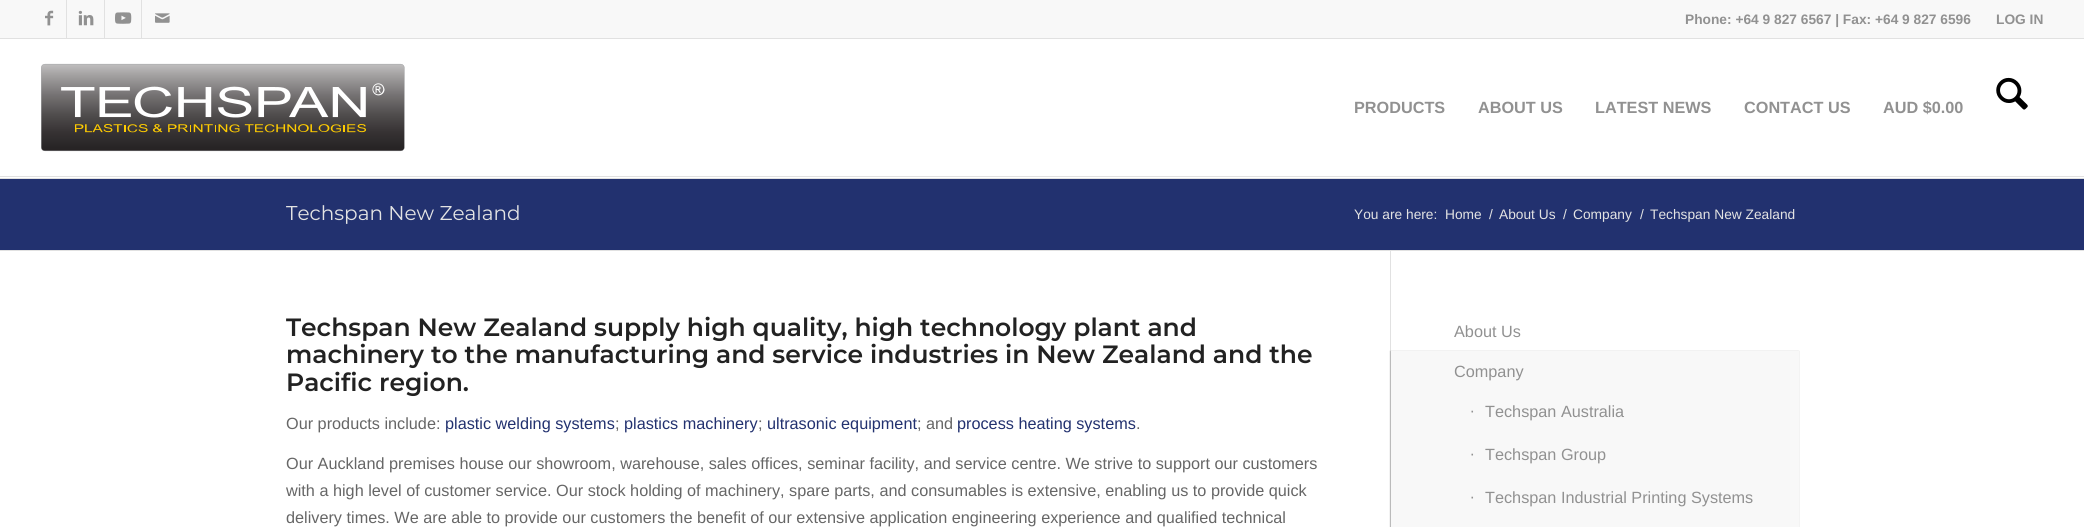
import math
import cairo

surface = cairo.ImageSurface(cairo.Format.RGB24, 2084, 527)
ctx = cairo.Context(surface)
options = cairo.FontOptions()
options.set_hint_metrics(cairo.HintMetrics.OFF)
options.set_hint_style(cairo.HintStyle.NONE)
ctx.set_font_options(options)
ctx.set_miter_limit(4)


def ink(r, g, b):
    ctx.set_source_rgb(r / 255, g / 255, b / 255)


def write(x, y, s, family, size, color, bold=False, italic=False):
    ctx.select_font_face(family, cairo.FontSlant.ITALIC if italic else cairo.FontSlant.NORMAL, cairo.FontWeight.BOLD if bold else cairo.FontWeight.NORMAL)
    ctx.set_font_size(size)
    ink(*color)
    ctx.move_to(x, y)
    ctx.show_text(s)


def block(x, y, w, h, *color):
    ink(*color)
    ctx.rectangle(x, y, w, h)
    ctx.fill()


def round_path(x, y, w, h, r):
    ctx.new_sub_path()
    for i, (u, v) in enumerate([(x + w - r, y + h - r), (x + r, y + h - r), (x + r, y + r), (x + w - r, y + r)]):
        ctx.arc(u, v, r, i * math.pi / 2, (i + 1) * math.pi / 2)
    ctx.close_path()


def blur_box(x, y, w, h, r, blur, alpha):
    ctx.push_group_with_content(cairo.Content.ALPHA)
    ctx.set_operator(cairo.Operator.SOURCE)
    for i in range(15, -16, -2):
        e = blur * i / 6
        if min(w, h) + 2 * e > 0:
            ctx.set_source_rgba(0, 0, 0, alpha * math.erfc((i - 1) / 8.5) / 2)
            round_path(x - e, y - e, w + 2 * e, h + 2 * e, max(0, min(r + e + blur * .6, min(w, h) / 2 + e)))
            ctx.fill()
    ctx.mask(ctx.pop_group())


def paste(path, x, y, w, h):
    ctx.save()
    ctx.set_source_surface(cairo.ImageSurface.create_from_png(path), x, y)
    ctx.rectangle(x, y, w, h)
    ctx.fill()
    ctx.restore()


s1 = dict(family="Liberation Sans", size=13.75, color=(145, 145, 145), bold=True)
s2 = dict(family="Liberation Sans", size=16.25, color=(145, 145, 145), bold=True)
s3 = dict(family="Montserrat", size=20, color=(227, 227, 227))
s4 = dict(family="Liberation Sans", size=13.75, color=(227, 227, 227))
s5 = dict(family="Montserrat SemiBold", size=25, color=(34, 34, 34))
s6 = dict(family="Liberation Sans", size=16.25, color=(102, 102, 102))
s7 = dict(family="Liberation Sans", size=16.25, color=(34, 49, 111))
s8 = dict(family="Liberation Sans", size=16.25, color=(145, 145, 145))

ink(255, 255, 255)
ctx.paint()
block(0, 0, 2084, 38, 248, 248, 248)
block(0, 38, 2084, 1, 225, 225, 225)
block(66, 0, 1, 38, 225, 225, 225)
paste("pic1.png", 45, 10, 9, 16)
block(104, 0, 1, 38, 225, 225, 225)
paste("pic2.png", 78, 10, 16, 16)
block(141, 0, 1, 38, 225, 225, 225)
paste("pic3.png", 115, 12, 17, 12)
paste("pic4.png", 155, 13, 15, 10)
write(1685, 24, "Phone: +64 9 827 6567 | Fax: +64 9 827 6596", **s1)
write(1996, 24, "LOG IN", **s1)
block(0, 176, 2084, 1, 225, 225, 225)
paste("pic5.png", 41, 63, 364, 89)
write(1354, 113, "PRODUCTS", **s2)
write(1478, 113, "ABOUT US", **s2)
write(1595, 113, "LATEST NEWS", **s2)
write(1744, 113, "CONTACT US", **s2)
write(1883, 113, "AUD $0.00", **s2)
paste("pic6.png", 1996, 77, 32, 33)
block(0, 179, 2084, 71, 34, 49, 111)
block(0, 178, 2084, 1, 225, 225, 225)
write(286, 220, "Techspan New Zealand", **s3)
write(1354, 219, "You are here:", **s4)
write(1445, 219, "Home", **s4)
write(1489, 219, "/", **s4)
write(1499, 219, "About Us", **s4)
write(1563, 219, "/", **s4)
write(1573, 219, "Company", **s4)
write(1640, 219, "/", **s4)
write(1650, 219, "Techspan New Zealand", **s4)
block(0, 250, 2084, 1, 225, 225, 225)
block(1390, 251, 1, 276, 225, 225, 225)
write(286, 336, "Techspan New Zealand supply high quality, high technology plant and", **s5)
write(286, 363, "machinery to the manufacturing and service industries in New Zealand and the", **s5)
write(286, 391, "Pacific region.", **s5)
write(286, 429, "Our products include:", **s6)
write(445, 429, "plastic welding systems", **s7)
write(615, 429, ";", **s6)
write(624, 429, "plastics machinery", **s7)
write(758, 429, ";", **s6)
write(767, 429, "ultrasonic equipment", **s7)
write(917, 429, "; and", **s6)
write(957, 429, "process heating systems", **s7)
write(1136, 429, ".", **s6)
write(286, 469, "Our Auckland premises house our showroom, warehouse, sales offices, seminar facility, and service centre. We strive to support our customers", **s6)
write(286, 496, "with a high level of customer service. Our stock holding of machinery, spare parts, and consumables is extensive, enabling us to provide quick", **s6)
write(286, 523, "delivery times. We are able to provide our customers the benefit of our extensive application engineering experience and qualified technical", **s6)
write(1454, 337, "About Us", **s8)
ink(0, 0, 0)
blur_box(1390, 351, 409, 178, 0, 0.5, 0.2)
block(1391, 351, 408, 176, 248, 248, 248)
write(1454, 377, "Company", **s8)
write(1470, 416, "∙", **s8)
write(1485, 417, "Techspan Australia", **s8)
write(1470, 459, "∙", **s8)
write(1485, 460, "Techspan Group", **s8)
write(1470, 502, "∙", **s8)
write(1485, 503, "Techspan Industrial Printing Systems", **s8)
surface.write_to_png("screenshot.png")
